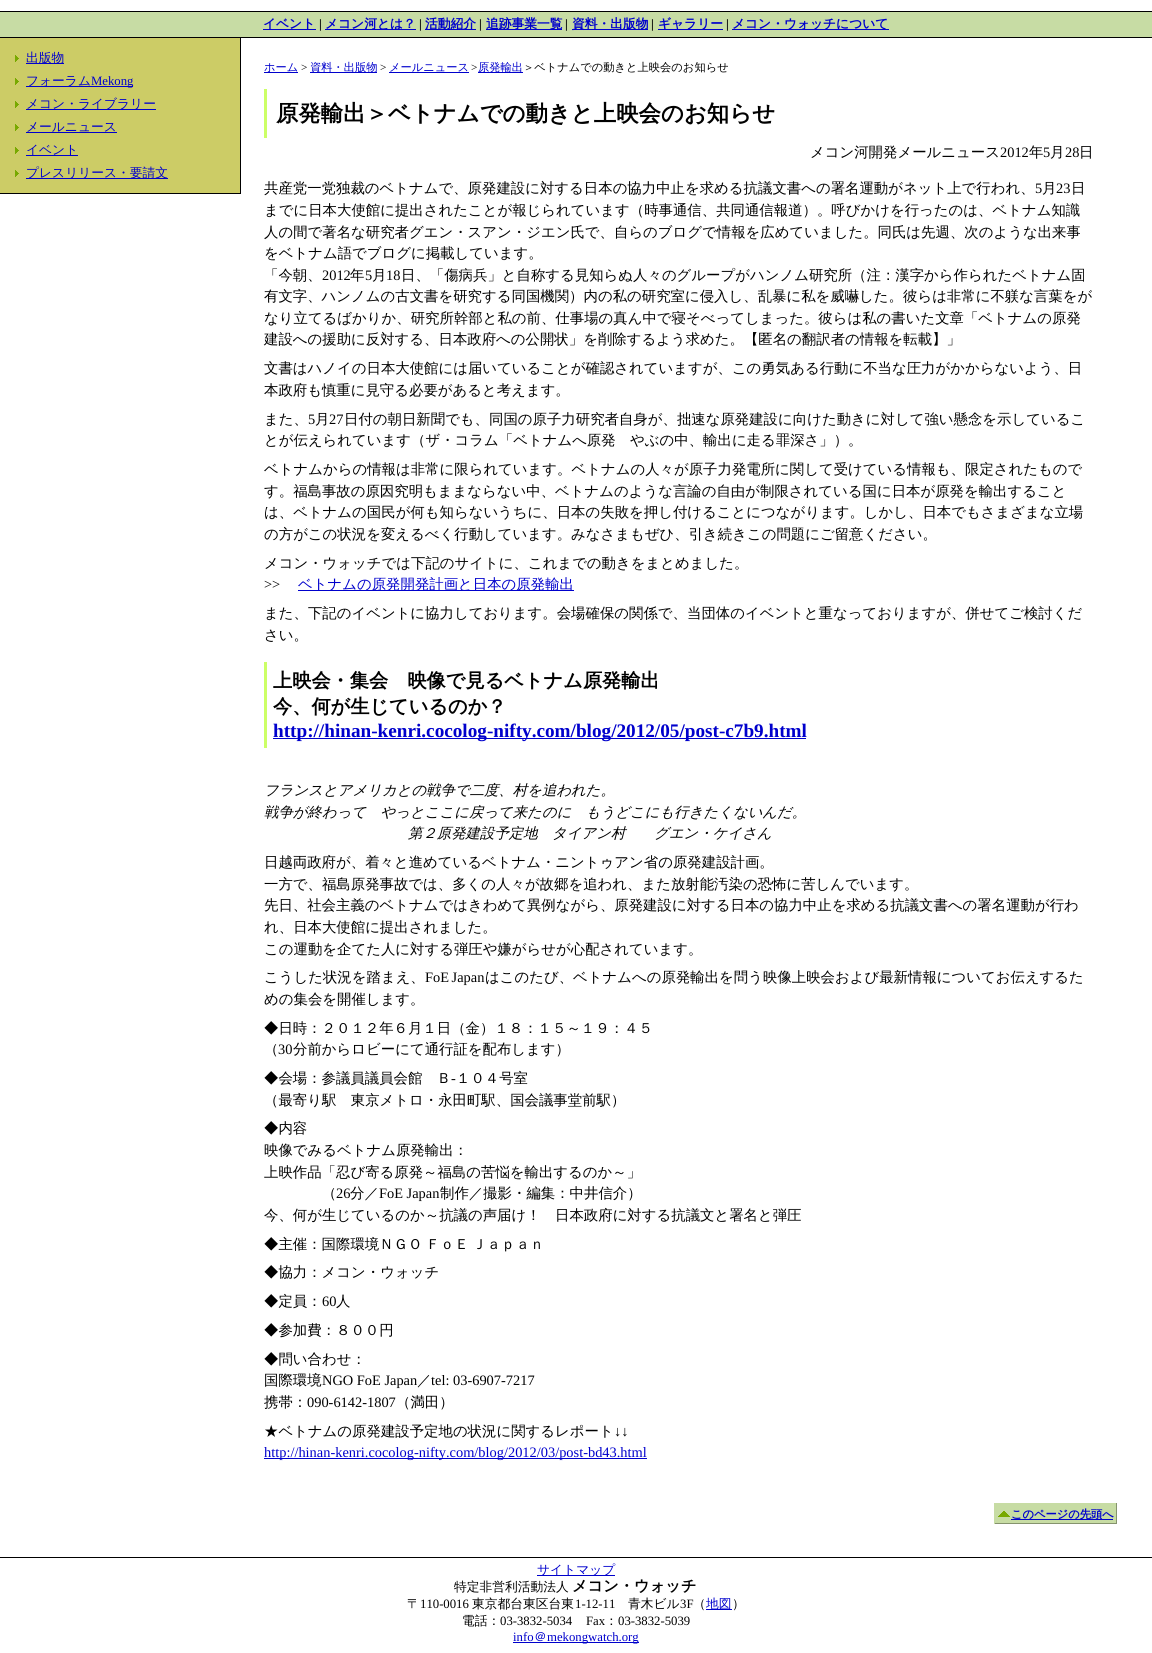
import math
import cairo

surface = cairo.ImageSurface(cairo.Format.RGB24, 1152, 1653)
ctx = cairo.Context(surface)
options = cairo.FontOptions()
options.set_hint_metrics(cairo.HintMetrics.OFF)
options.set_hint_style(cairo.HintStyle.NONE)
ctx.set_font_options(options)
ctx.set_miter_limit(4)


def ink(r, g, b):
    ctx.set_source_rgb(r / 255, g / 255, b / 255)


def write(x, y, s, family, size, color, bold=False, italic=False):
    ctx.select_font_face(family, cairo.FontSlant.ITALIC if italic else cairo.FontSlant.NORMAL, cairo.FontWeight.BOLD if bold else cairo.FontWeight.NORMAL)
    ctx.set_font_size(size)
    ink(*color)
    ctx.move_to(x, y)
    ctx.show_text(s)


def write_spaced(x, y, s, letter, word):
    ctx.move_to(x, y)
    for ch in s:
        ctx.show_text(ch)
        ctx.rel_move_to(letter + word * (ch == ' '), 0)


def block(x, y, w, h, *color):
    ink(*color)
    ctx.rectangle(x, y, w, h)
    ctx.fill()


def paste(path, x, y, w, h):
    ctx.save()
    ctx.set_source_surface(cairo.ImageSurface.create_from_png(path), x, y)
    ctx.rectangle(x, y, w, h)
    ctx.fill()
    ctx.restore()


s1 = dict(family="WenQuanYi Zen Hei", size=12.75, color=(0, 0, 204), bold=True)
s2 = dict(family="Liberation Serif", size=12.75, color=(0, 0, 0), bold=True)
s3 = dict(family="WenQuanYi Zen Hei Medium", size=12.75, color=(0, 0, 204))
s4 = dict(family="Liberation Serif", size=12.75, color=(0, 0, 204))
s5 = dict(family="WenQuanYi Zen Hei Medium", size=11.25, color=(0, 0, 204))
s6 = dict(family="Liberation Serif", size=11.25, color=(0, 0, 0))
s7 = dict(family="WenQuanYi Zen Hei Medium", size=11.25, color=(0, 0, 0))
s8 = dict(family="WenQuanYi Zen Hei", size=22.4, color=(0, 0, 0), bold=True)
s9 = dict(family="WenQuanYi Zen Hei Medium", size=14.4, color=(0, 0, 0))
s10 = dict(family="Liberation Serif", size=14.4, color=(0, 0, 0))
s11 = dict(family="WenQuanYi Zen Hei Medium", size=14.4, color=(0, 0, 204))
s12 = dict(family="WenQuanYi Zen Hei", size=19.2, color=(0, 0, 0), bold=True)
s13 = dict(family="Liberation Serif", size=19.2, color=(0, 0, 204), bold=True)
s14 = dict(family="WenQuanYi Zen Hei Medium", size=14.4, color=(0, 0, 0), italic=True)
s15 = dict(family="Liberation Serif", size=14.4, color=(0, 0, 204))
s16 = dict(family="WenQuanYi Zen Hei", size=11.25, color=(0, 0, 204), bold=True)
s17 = dict(family="WenQuanYi Zen Hei Medium", size=12.75, color=(0, 0, 0))
s18 = dict(family="WenQuanYi Zen Hei", size=15.25, color=(0, 0, 0), bold=True)
s19 = dict(family="Liberation Serif", size=12.75, color=(0, 0, 0))

ink(255, 255, 255)
ctx.paint()
block(0, 12, 1152, 25, 199, 220, 164)
block(0, 11, 1152, 1, 0, 0, 0)
block(0, 37, 1152, 1, 0, 0, 0)
block(263, 29, 53, 1, 0, 0, 204)
write(263, 28, "イベント", **s1)
write(319, 28, "|", **s2)
block(325, 29, 91, 1, 0, 0, 204)
write(325, 28, "メコン河とは？", **s1)
write(419, 28, "|", **s2)
block(425, 29, 51, 1, 0, 0, 204)
write(425, 28, "活動紹介", **s1)
write(479, 28, "|", **s2)
block(486, 29, 76, 1, 0, 0, 204)
write(486, 28, "追跡事業一覧", **s1)
write(565, 28, "|", **s2)
block(572, 29, 76, 1, 0, 0, 204)
write(572, 28, "資料・出版物", **s1)
write(651, 28, "|", **s2)
block(658, 29, 65, 1, 0, 0, 204)
write(658, 28, "ギャラリー", **s1)
write(726, 28, "|", **s2)
block(732, 29, 157, 1, 0, 0, 204)
write(732, 28, "メコン・ウォッチについて", **s1)
block(0, 38, 240, 155, 204, 204, 102)
block(240, 38, 1, 156, 0, 0, 0)
block(0, 193, 241, 1, 0, 0, 0)
paste("pic1.png", 15, 55, 4, 7)
block(26, 63, 38, 1, 0, 0, 204)
write(26, 62, "出版物", **s3)
paste("pic1.png", 15, 78, 4, 7)
block(26, 86, 107, 1, 0, 0, 204)
write(26, 85, "フォーラム", **s3)
write(91, 85, "Mekong", **s4)
paste("pic1.png", 15, 101, 4, 7)
block(26, 109, 130, 1, 0, 0, 204)
write(26, 108, "メコン・ライブラリー", **s3)
paste("pic1.png", 15, 124, 4, 7)
write(26, 131, "メールニュース", **s3)
block(26, 132, 91, 1, 0, 0, 204)
paste("pic1.png", 15, 147, 4, 7)
block(26, 155, 52, 1, 0, 0, 204)
write(26, 154, "イベント", **s3)
paste("pic1.png", 15, 170, 4, 7)
block(26, 178, 142, 1, 0, 0, 204)
write(26, 177, "プレスリリース・要請文", **s3)
block(264, 72, 34, 1, 0, 0, 204)
write(264, 71, "ホーム", **s5)
write(301, 71, ">", **s6)
block(310, 72, 67, 1, 0, 0, 204)
write(310, 71, "資料・出版物", **s5)
write(380, 71, ">", **s6)
write(389, 71, "メールニュース", **s5)
block(389, 72, 80, 1, 0, 0, 204)
write(471, 71, ">", **s6)
block(478, 72, 45, 1, 0, 0, 204)
write(478, 71, "原発輸出", **s5)
write(523, 71, "＞ベトナムでの動きと上映会のお知らせ", **s7)
block(264, 89, 3, 49, 204, 255, 102)
write(276, 121, "原発輸出＞ベトナムでの動きと上映会のお知らせ", **s8)
write(810, 157, "メコン河開発メールニュース", **s9)
write(1000, 157, "2012", **s10)
write(1029, 157, "年", **s9)
write(1043, 157, "5", **s10)
write(1050, 157, "月", **s9)
write(1065, 157, "28", **s10)
write(1079, 157, "日", **s9)
write(264, 193, "共産党一党独裁のベトナムで、原発建設に対する日本の協力中止を求める抗議文書への署名運動がネット上で行われ、", **s9)
write(1035, 193, "5", **s10)
write(1042, 193, "月", **s9)
write(1056, 193, "23", **s10)
write(1071, 193, "日", **s9)
write(264, 215, "までに日本大使館に提出されたことが報じられています（時事通信、共同通信報道）。呼びかけを行ったのは、ベトナム知識", **s9)
write(264, 237, "人の間で著名な研究者グエン・スアン・ジエン氏で、自らのブログで情報を広めていました。同氏は先週、次のような出来事", **s9)
write(264, 258, "をベトナム語でブログに掲載しています。", **s9)
write(264, 280, "「今朝、", **s9)
write(322, 280, "2012", **s10)
write(350, 280, "年", **s9)
write(365, 280, "5", **s10)
write(372, 280, "月", **s9)
write(386, 280, "18", **s10)
write(401, 280, "日、「傷病兵」と自称する見知らぬ人々のグループがハンノム研究所（注：漢字から作られたベトナム固", **s9)
write(264, 301, "有文字、ハンノムの古文書を研究する同国機関）内の私の研究室に侵入し、乱暴に私を威嚇した。彼らは非常に不躾な言葉をが", **s9)
write(264, 323, "なり立てるばかりか、研究所幹部と私の前、仕事場の真ん中で寝そべってしまった。彼らは私の書いた文章「ベトナムの原発", **s9)
write(264, 344, "建設への援助に反対する、日本政府への公開状」を削除するよう求めた。【匿名の翻訳者の情報を転載】」", **s9)
write(264, 373, "文書はハノイの日本大使館には届いていることが確認されていますが、この勇気ある行動に不当な圧力がかからないよう、日", **s9)
write(264, 395, "本政府も慎重に見守る必要があると考えます。", **s9)
write(264, 424, "また、", **s9)
write(308, 424, "5", **s10)
write(315, 424, "月", **s9)
write(329, 424, "27", **s10)
write(344, 424, "日付の朝日新聞でも、同国の原子力研究者自身が、拙速な原発建設に向けた動きに対して強い懸念を示しているこ", **s9)
write(264, 445, "とが伝えられています（ザ・コラム「ベトナムへ原発　やぶの中、輸出に走る罪深さ」）。", **s9)
write(264, 474, "ベトナムからの情報は非常に限られています。ベトナムの人々が原子力発電所に関して受けている情報も、限定されたもので", **s9)
write(264, 496, "す。福島事故の原因究明もままならない中、ベトナムのような言論の自由が制限されている国に日本が原発を輸出すること", **s9)
write(264, 517, "は、ベトナムの国民が何も知らないうちに、日本の失敗を押し付けることにつながります。しかし、日本でもさまざまな立場", **s9)
write(264, 539, "の方がこの状況を変えるべく行動しています。みなさまもぜひ、引き続きこの問題にご留意ください。", **s9)
write(264, 568, "メコン・ウォッチでは下記のサイトに、これまでの動きをまとめました。", **s9)
write(264, 589, ">>", **s10)
block(298, 590, 276, 1, 0, 0, 204)
write(298, 589, "ベトナムの原発開発計画と日本の原発輸出", **s11)
write(264, 618, "また、下記のイベントに協力しております。会場確保の関係で、当団体のイベントと重なっておりますが、併せてご検討くだ", **s9)
write(264, 640, "さい。", **s9)
block(264, 662, 3, 86, 204, 255, 102)
write(273, 687, "上映会・集会　映像で見るベトナム原発輸出", **s12)
write(273, 713, "今、何が生じているのか？", **s12)
block(273, 738, 533, 1, 0, 0, 204)
write(273, 737, "http://hinan-kenri.cocolog-nifty.com/blog/2012/05/post-c7b9.html", **s13)
write(264, 795, "フランスとアメリカとの戦争で二度、村を追われた。", **s14)
write(264, 817, "戦争が終わって　やっとここに戻って来たのに　もうどこにも行きたくないんだ。", **s14)
write(408, 838, "第２原発建設予定地　タイアン村　　グエン・ケイさん", **s14)
write(264, 867, "日越両政府が、着々と進めているベトナム・ニントゥアン省の原発建設計画。", **s9)
write(264, 889, "一方で、福島原発事故では、多くの人々が故郷を追われ、また放射能汚染の恐怖に苦しんでいます。", **s9)
write(264, 910, "先日、社会主義のベトナムではきわめて異例ながら、原発建設に対する日本の協力中止を求める抗議文書への署名運動が行わ", **s9)
write(264, 932, "れ、日本大使館に提出されました。", **s9)
write(264, 954, "この運動を企てた人に対する弾圧や嫌がらせが心配されています。", **s9)
write(264, 982, "こうした状況を踏まえ、", **s9)
ctx.select_font_face("Liberation Serif")
write_spaced(425, 982, "FoE Japan", 0, -1)
write(485, 982, "はこのたび、ベトナムへの原発輸出を問う映像上映会および最新情報についてお伝えするた", **s9)
write(264, 1004, "めの集会を開催します。", **s9)
write(264, 1033, "◆日時：２０１２年６月１日（金）１８：１５～１９：４５", **s9)
write(264, 1054, "（", **s9)
write(278, 1054, "30", **s10)
write(293, 1054, "分前からロビーにて通行証を配布します）", **s9)
write(264, 1083, "◆会場：参議員議員会館　Ｂ", **s9)
write(451, 1083, "-", **s10)
write(456, 1083, "１０４号室", **s9)
write(264, 1105, "（最寄り駅　東京メトロ・永田町駅、国会議事堂前駅）", **s9)
write(264, 1133, "◆内容", **s9)
write(264, 1155, "映像でみるベトナム原発輸出：", **s9)
write(264, 1177, "上映作品「忍び寄る原発～福島の苦悩を輸出するのか～」", **s9)
write(322, 1198, "（", **s9)
write(336, 1198, "26", **s10)
write(350, 1198, "分／", **s9)
write(379, 1198, "FoE Japan", **s10)
write(440, 1198, "制作／撮影・編集：中井信介）", **s9)
write(264, 1220, "今、何が生じているのか～抗議の声届け！　日本政府に対する抗議文と署名と弾圧", **s9)
write_spaced(264, 1249, "◆主催：国際環境ＮＧＯ ＦｏＥ Ｊａｐａｎ", 0, -1)
write(264, 1277, "◆協力：メコン・ウォッチ", **s9)
write(264, 1306, "◆定員：", **s9)
write(322, 1306, "60", **s10)
write(336, 1306, "人", **s9)
write(264, 1335, "◆参加費：８００円", **s9)
write(264, 1364, "◆問い合わせ：", **s9)
write(264, 1385, "国際環境", **s9)
write(322, 1385, "NGO FoE Japan", **s10)
write(417, 1385, "／", **s9)
write(431, 1385, "tel: 03-6907-7217", **s10)
write(264, 1407, "携帯：", **s9)
write(307, 1407, "090-6142-1807", **s10)
write(396, 1407, "（満田）", **s9)
write(264, 1436, "★ベトナムの原発建設予定地の状況に関するレポート", **s9)
write(614, 1436, "↓↓", **s10)
block(264, 1458, 383, 1, 0, 0, 204)
write(264, 1457, "http://hinan-kenri.cocolog-nifty.com/blog/2012/03/post-bd43.html", **s15)
block(995, 1503, 121, 20, 199, 220, 164)
paste("pic2.png", 998, 1511, 12, 6)
block(1011, 1519, 102, 1, 0, 0, 204)
write(1011, 1518, "このページの先頭へ", **s16)
block(1116, 1503, 1, 21, 133, 147, 109)
block(994, 1523, 123, 1, 133, 147, 109)
block(994, 1503, 1, 21, 199, 220, 164)
block(0, 1557, 1152, 1, 0, 0, 0)
block(537, 1575, 78, 1, 0, 0, 204)
write(537, 1574, "サイトマップ", **s3)
write(454, 1591, "特定非営利活動法人", **s17)
write(572, 1591, "メコン・ウォッチ", **s18)
write(407, 1608, "〒", **s17)
write(420, 1608, "110-0016", **s19)
write(472, 1608, "東京都台東区台東", **s17)
write(575, 1608, "1-12-11", **s19)
write(628, 1608, "青木ビル", **s17)
write(680, 1608, "3F", **s19)
write(693, 1608, "（", **s17)
block(706, 1609, 26, 1, 0, 0, 204)
write(706, 1608, "地図", **s3)
write(732, 1608, "）", **s17)
write(462, 1625, "電話：", **s17)
write(500, 1625, "03-3832-5034", **s19)
write(586, 1625, "Fax", **s19)
write(605, 1625, "：", **s17)
write(618, 1625, "03-3832-5039", **s19)
write(513, 1641, "info", **s4)
write(534, 1641, "＠", **s3)
block(513, 1642, 126, 1, 0, 0, 204)
write(547, 1641, "mekongwatch.org", **s4)
surface.write_to_png("screenshot.png")
